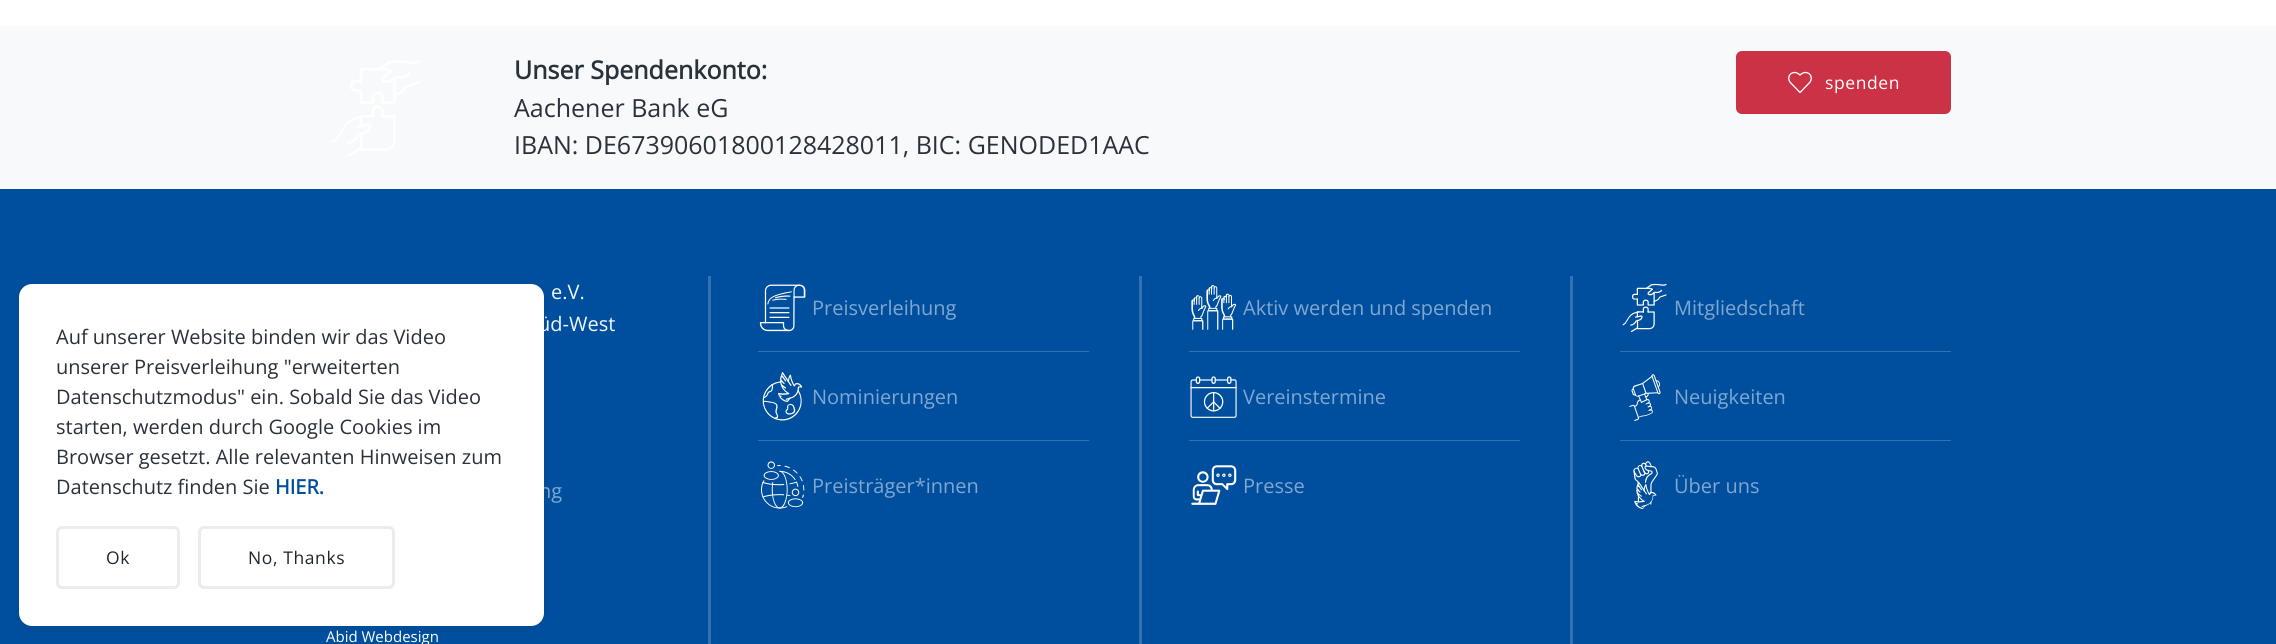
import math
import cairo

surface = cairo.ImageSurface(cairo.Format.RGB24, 2276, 644)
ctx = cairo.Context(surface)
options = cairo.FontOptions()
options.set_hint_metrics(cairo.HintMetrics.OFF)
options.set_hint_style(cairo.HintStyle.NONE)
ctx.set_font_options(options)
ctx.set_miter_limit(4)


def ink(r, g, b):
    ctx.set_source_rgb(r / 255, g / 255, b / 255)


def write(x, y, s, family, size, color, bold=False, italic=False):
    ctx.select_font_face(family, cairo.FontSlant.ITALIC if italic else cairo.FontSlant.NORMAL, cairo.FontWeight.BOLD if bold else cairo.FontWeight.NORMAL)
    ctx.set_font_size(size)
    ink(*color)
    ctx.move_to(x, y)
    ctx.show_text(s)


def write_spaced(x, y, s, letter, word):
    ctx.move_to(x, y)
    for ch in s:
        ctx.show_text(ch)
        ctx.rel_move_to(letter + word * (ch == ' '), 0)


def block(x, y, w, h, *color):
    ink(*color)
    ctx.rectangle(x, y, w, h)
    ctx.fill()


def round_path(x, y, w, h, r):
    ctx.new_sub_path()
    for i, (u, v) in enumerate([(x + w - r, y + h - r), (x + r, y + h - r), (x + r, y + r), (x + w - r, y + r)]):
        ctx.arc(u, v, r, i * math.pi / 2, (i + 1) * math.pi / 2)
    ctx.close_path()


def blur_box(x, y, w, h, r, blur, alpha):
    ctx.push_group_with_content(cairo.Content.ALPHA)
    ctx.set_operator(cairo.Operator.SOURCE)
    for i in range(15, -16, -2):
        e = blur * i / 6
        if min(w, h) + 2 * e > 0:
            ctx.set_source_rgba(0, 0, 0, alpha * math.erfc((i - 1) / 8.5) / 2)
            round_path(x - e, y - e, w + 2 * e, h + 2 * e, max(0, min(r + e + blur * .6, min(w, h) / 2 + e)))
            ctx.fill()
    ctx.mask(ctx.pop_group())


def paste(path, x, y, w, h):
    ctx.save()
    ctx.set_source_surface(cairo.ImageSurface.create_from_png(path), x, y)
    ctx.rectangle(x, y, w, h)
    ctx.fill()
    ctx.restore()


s1 = dict(family="Open Sans", size=20, color=(245, 248, 251))
s2 = dict(family="Open Sans", size=20, color=(128, 167, 207))
s3 = dict(family="Open Sans", size=20, color=(41, 49, 58))
s4 = dict(family="Open Sans", size=20, color=(0, 79, 159), bold=True)
s5 = dict(family="Open Sans", size=25, color=(41, 49, 58), bold=True)
s6 = dict(family="Open Sans", size=25, color=(41, 49, 58))
s7 = dict(family="Open Sans", size=15, color=(255, 255, 255))

ink(255, 255, 255)
ctx.paint()
block(0, 189, 2276, 455, 0, 79, 159)
ink(0, 0, 0)
blur_box(19, 285, 525, 343, 13, 6, 0.08)
write(538, 331, "üd-West", **s1)
write(539, 498, "ng", **s2)
ink(255, 255, 255)
round_path(19, 284, 525, 342, 13)
ctx.fill()
write(56, 344, "Auf unserer Website binden wir das Video", **s3)
write(56, 374, "unserer Preisverleihung \"erweiterten", **s3)
write(56, 404, "Datenschutzmodus\" ein. Sobald Sie das Video", **s3)
write(56, 434, "starten, werden durch Google Cookies im", **s3)
write(56, 464, "Browser gesetzt. Alle relevanten Hinweisen zum", **s3)
write(56, 494, "Datenschutz finden Sie", **s3)
write(275, 494, "HIER.", **s4)
round_path(57.5, 527.5, 121, 60, 4.5)
ink(236, 236, 236)
ctx.set_line_width(3)
ctx.stroke()
ctx.select_font_face("Open Sans")
ctx.set_font_size(17.5)
ink(30, 38, 43)
write_spaced(106, 564, "Ok", 0.6, 0)
round_path(199.5, 527.5, 194, 60, 4.5)
ink(236, 236, 236)
ctx.stroke()
ink(30, 38, 43)
write_spaced(248, 564, "No, Thanks", 0.6, 0)
block(0, 26, 2276, 163, 247, 249, 251)
paste("pic1.png", 332, 60, 88, 96)
write(514, 79, "Unser Spendenkonto:", **s5)
write(514, 117, "Aachener Bank eG", **s6)
write(514, 154, "IBAN: DE67390601800128428011, BIC: GENODED1AAC", **s6)
ink(203, 50, 69)
round_path(1736, 51, 215, 63, 6)
ctx.fill()
paste("pic2.png", 1788, 71, 24, 23)
ctx.set_font_size(17.5)
ink(255, 255, 255)
write_spaced(1825, 89, "spenden", 0.6, 0)
write(551, 299, "e.V.", **s1)
write(326, 642, "Abid Webdesign", **s7)
block(708, 276, 3, 368, 51, 114, 178)
paste("pic3.png", 759, 284, 47, 48)
write(812, 315, "Preisverleihung", **s2)
block(758, 351, 331, 1, 51, 114, 178)
paste("pic4.png", 762, 372, 41, 49)
write(812, 404, "Nominierungen", **s2)
block(758, 440, 331, 1, 51, 114, 178)
paste("pic5.png", 761, 461, 44, 48)
write(812, 493, "Preisträger*innen", **s2)
block(1139, 276, 3, 368, 51, 114, 178)
paste("pic6.png", 1191, 285, 46, 45)
write(1243, 315, "Aktiv werden und spenden", **s2)
block(1189, 351, 331, 1, 51, 114, 178)
paste("pic7.png", 1190, 376, 47, 42)
write(1243, 404, "Vereinstermine", **s2)
block(1189, 440, 331, 1, 51, 114, 178)
paste("pic8.png", 1191, 465, 46, 40)
write(1243, 493, "Presse", **s2)
block(1570, 276, 3, 368, 51, 114, 178)
paste("pic9.png", 1622, 283, 45, 49)
write(1674, 315, "Mitgliedschaft", **s2)
block(1620, 351, 331, 1, 51, 114, 178)
paste("pic10.png", 1629, 374, 32, 47)
write(1674, 404, "Neuigkeiten", **s2)
block(1620, 440, 331, 1, 51, 114, 178)
paste("pic11.png", 1633, 461, 25, 48)
write(1674, 493, "Über uns", **s2)
surface.write_to_png("screenshot.png")
